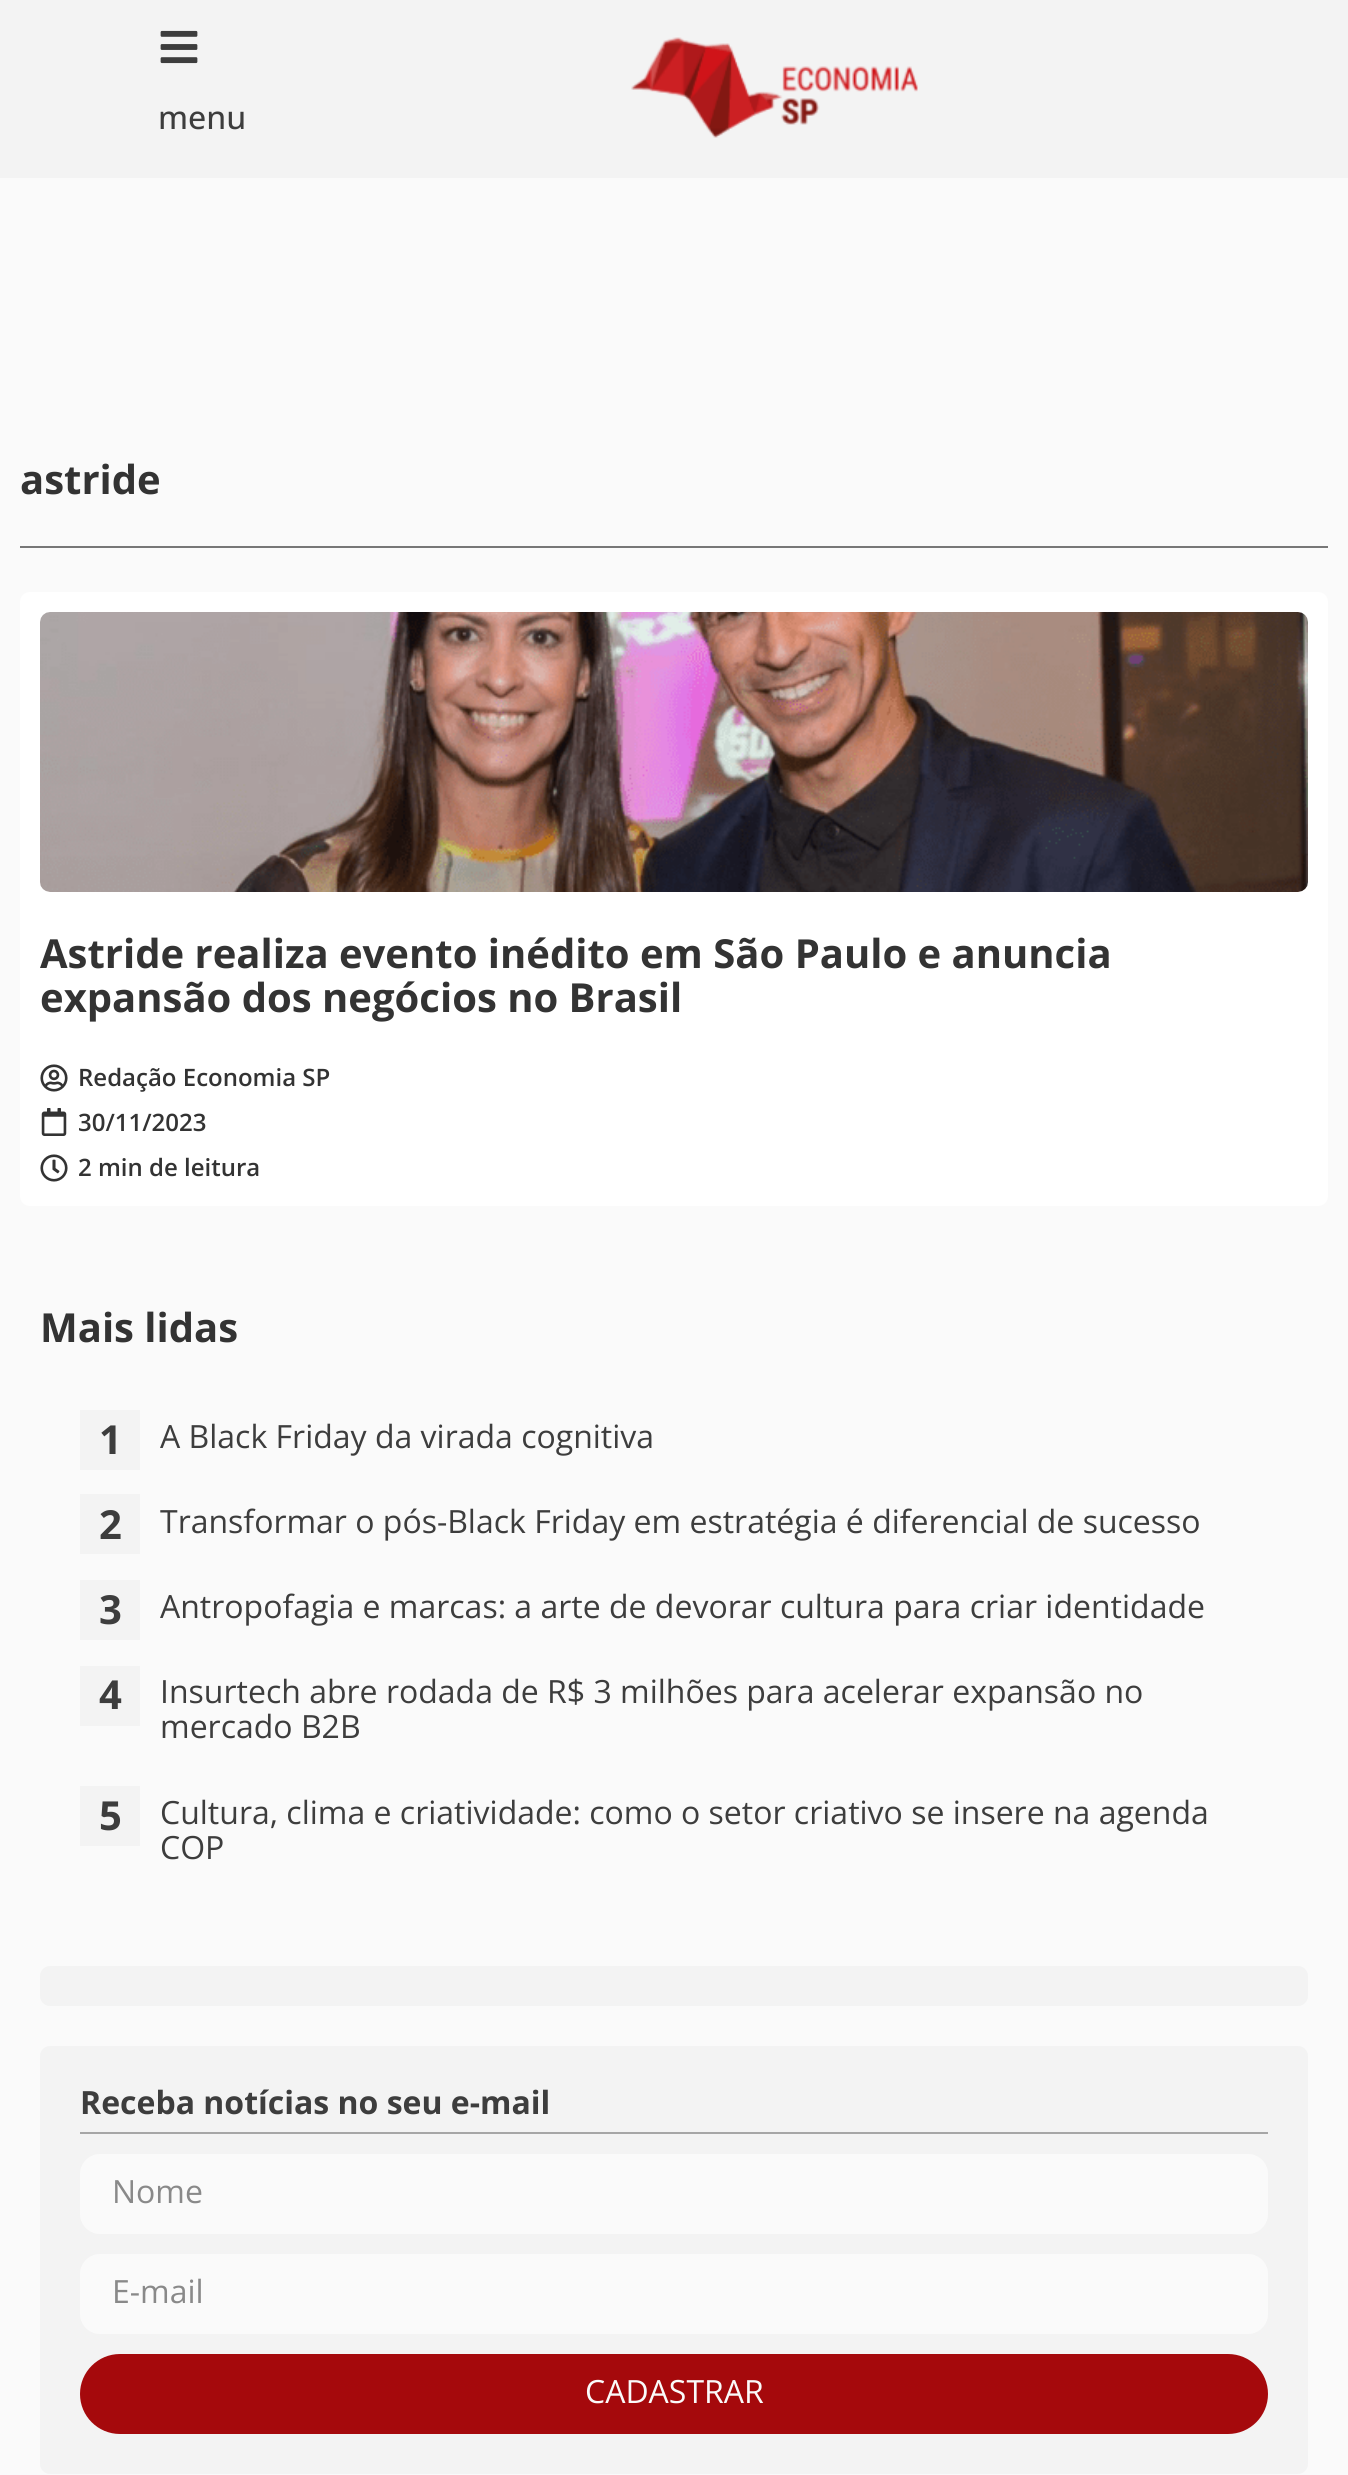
import math
import cairo

surface = cairo.ImageSurface(cairo.Format.RGB24, 1348, 2475)
ctx = cairo.Context(surface)
options = cairo.FontOptions()
options.set_hint_metrics(cairo.HintMetrics.OFF)
options.set_hint_style(cairo.HintStyle.NONE)
ctx.set_font_options(options)
ctx.set_miter_limit(4)


def ink(r, g, b):
    ctx.set_source_rgb(r / 255, g / 255, b / 255)


def write(x, y, s, family, size, color, bold=False, italic=False):
    ctx.select_font_face(family, cairo.FontSlant.ITALIC if italic else cairo.FontSlant.NORMAL, cairo.FontWeight.BOLD if bold else cairo.FontWeight.NORMAL)
    ctx.set_font_size(size)
    ink(*color)
    ctx.move_to(x, y)
    ctx.show_text(s)


def block(x, y, w, h, *color):
    ink(*color)
    ctx.rectangle(x, y, w, h)
    ctx.fill()


def round_path(x, y, w, h, r):
    ctx.new_sub_path()
    for i, (u, v) in enumerate([(x + w - r, y + h - r), (x + r, y + h - r), (x + r, y + r), (x + w - r, y + r)]):
        ctx.arc(u, v, r, i * math.pi / 2, (i + 1) * math.pi / 2)
    ctx.close_path()


def paste(path, x, y, w, h):
    ctx.save()
    ctx.set_source_surface(cairo.ImageSurface.create_from_png(path), x, y)
    ctx.rectangle(x, y, w, h)
    ctx.fill()
    ctx.restore()


s1 = dict(family="Open Sans Medium", size=32, color=(61, 61, 61))
s2 = dict(family="Open Sans", size=40, color=(51, 51, 51), bold=True)
s3 = dict(family="Open Sans SemiBold", size=24, color=(51, 51, 51))
s4 = dict(family="Open Sans", size=40, color=(61, 61, 61), bold=True)
s5 = dict(family="Open Sans", size=32, color=(61, 61, 61))
s6 = dict(family="Open Sans", size=32, color=(61, 61, 61), bold=True)
s7 = dict(family="Open Sans", size=32, color=(137, 137, 137))
s8 = dict(family="Open Sans", size=32, color=(250, 250, 250))

ink(250, 250, 250)
ctx.paint()
block(0, 0, 1348, 178, 243, 243, 243)
paste("pic1.png", 160, 30, 38, 34)
write(158, 129, "menu", **s1)
paste("pic2.png", 631, 37, 287, 101)
write(20, 494, "astride", **s2)
block(20, 546, 1308, 2, 119, 119, 119)
ink(255, 255, 255)
round_path(20, 592, 1308, 614, 10)
ctx.fill()
paste("pic3.png", 40, 612, 1268, 280)
write(40, 968, "Astride realiza evento inédito em São Paulo e anuncia", **s2)
write(40, 1012, "expansão dos negócios no Brasil", **s2)
paste("pic4.png", 40, 1064, 28, 28)
write(78, 1086, "Redação Economia SP", **s3)
paste("pic5.png", 41, 1108, 26, 28)
write(78, 1131, "30/11/2023", **s3)
paste("pic6.png", 40, 1154, 28, 28)
write(78, 1176, "2 min de leitura", **s3)
write(40, 1342, "Mais lidas", **s2)
block(80, 1410, 60, 60, 243, 243, 243)
write(99, 1454, "1", **s4)
write(160, 1448, "A Black Friday da virada cognitiva", **s5)
block(80, 1494, 60, 60, 243, 243, 243)
write(99, 1539, "2", **s4)
write(160, 1533, "Transformar o pós-Black Friday em estratégia é diferencial de sucesso", **s5)
block(80, 1580, 60, 60, 243, 243, 243)
write(99, 1624, "3", **s4)
write(160, 1618, "Antropofagia e marcas: a arte de devorar cultura para criar identidade", **s5)
block(80, 1666, 60, 60, 243, 243, 243)
write(99, 1709, "4", **s4)
write(160, 1703, "Insurtech abre rodada de R$ 3 milhões para acelerar expansão no", **s5)
write(160, 1738, "mercado B2B", **s5)
block(80, 1786, 60, 60, 243, 243, 243)
write(99, 1830, "5", **s4)
write(160, 1824, "Cultura, clima e criatividade: como o setor criativo se insere na agenda", **s5)
write(160, 1859, "COP", **s5)
ink(243, 243, 243)
round_path(40, 1966, 1268, 40, 10)
ctx.fill()
round_path(40, 2046, 1268, 428, 10)
ctx.fill()
block(80, 2132, 1188, 2, 166, 166, 166)
write(80, 2114, "Receba notícias no seu e-mail", **s6)
ink(250, 250, 250)
round_path(80, 2154, 1188, 80, 20)
ctx.fill()
write(112, 2203, "Nome", **s7)
ink(250, 250, 250)
round_path(80, 2254, 1188, 80, 20)
ctx.fill()
write(112, 2303, "E-mail", **s7)
ink(165, 9, 12)
round_path(80, 2354, 1188, 80, 40)
ctx.fill()
write(585, 2403, "CADASTRAR", **s8)
surface.write_to_png("screenshot.png")
